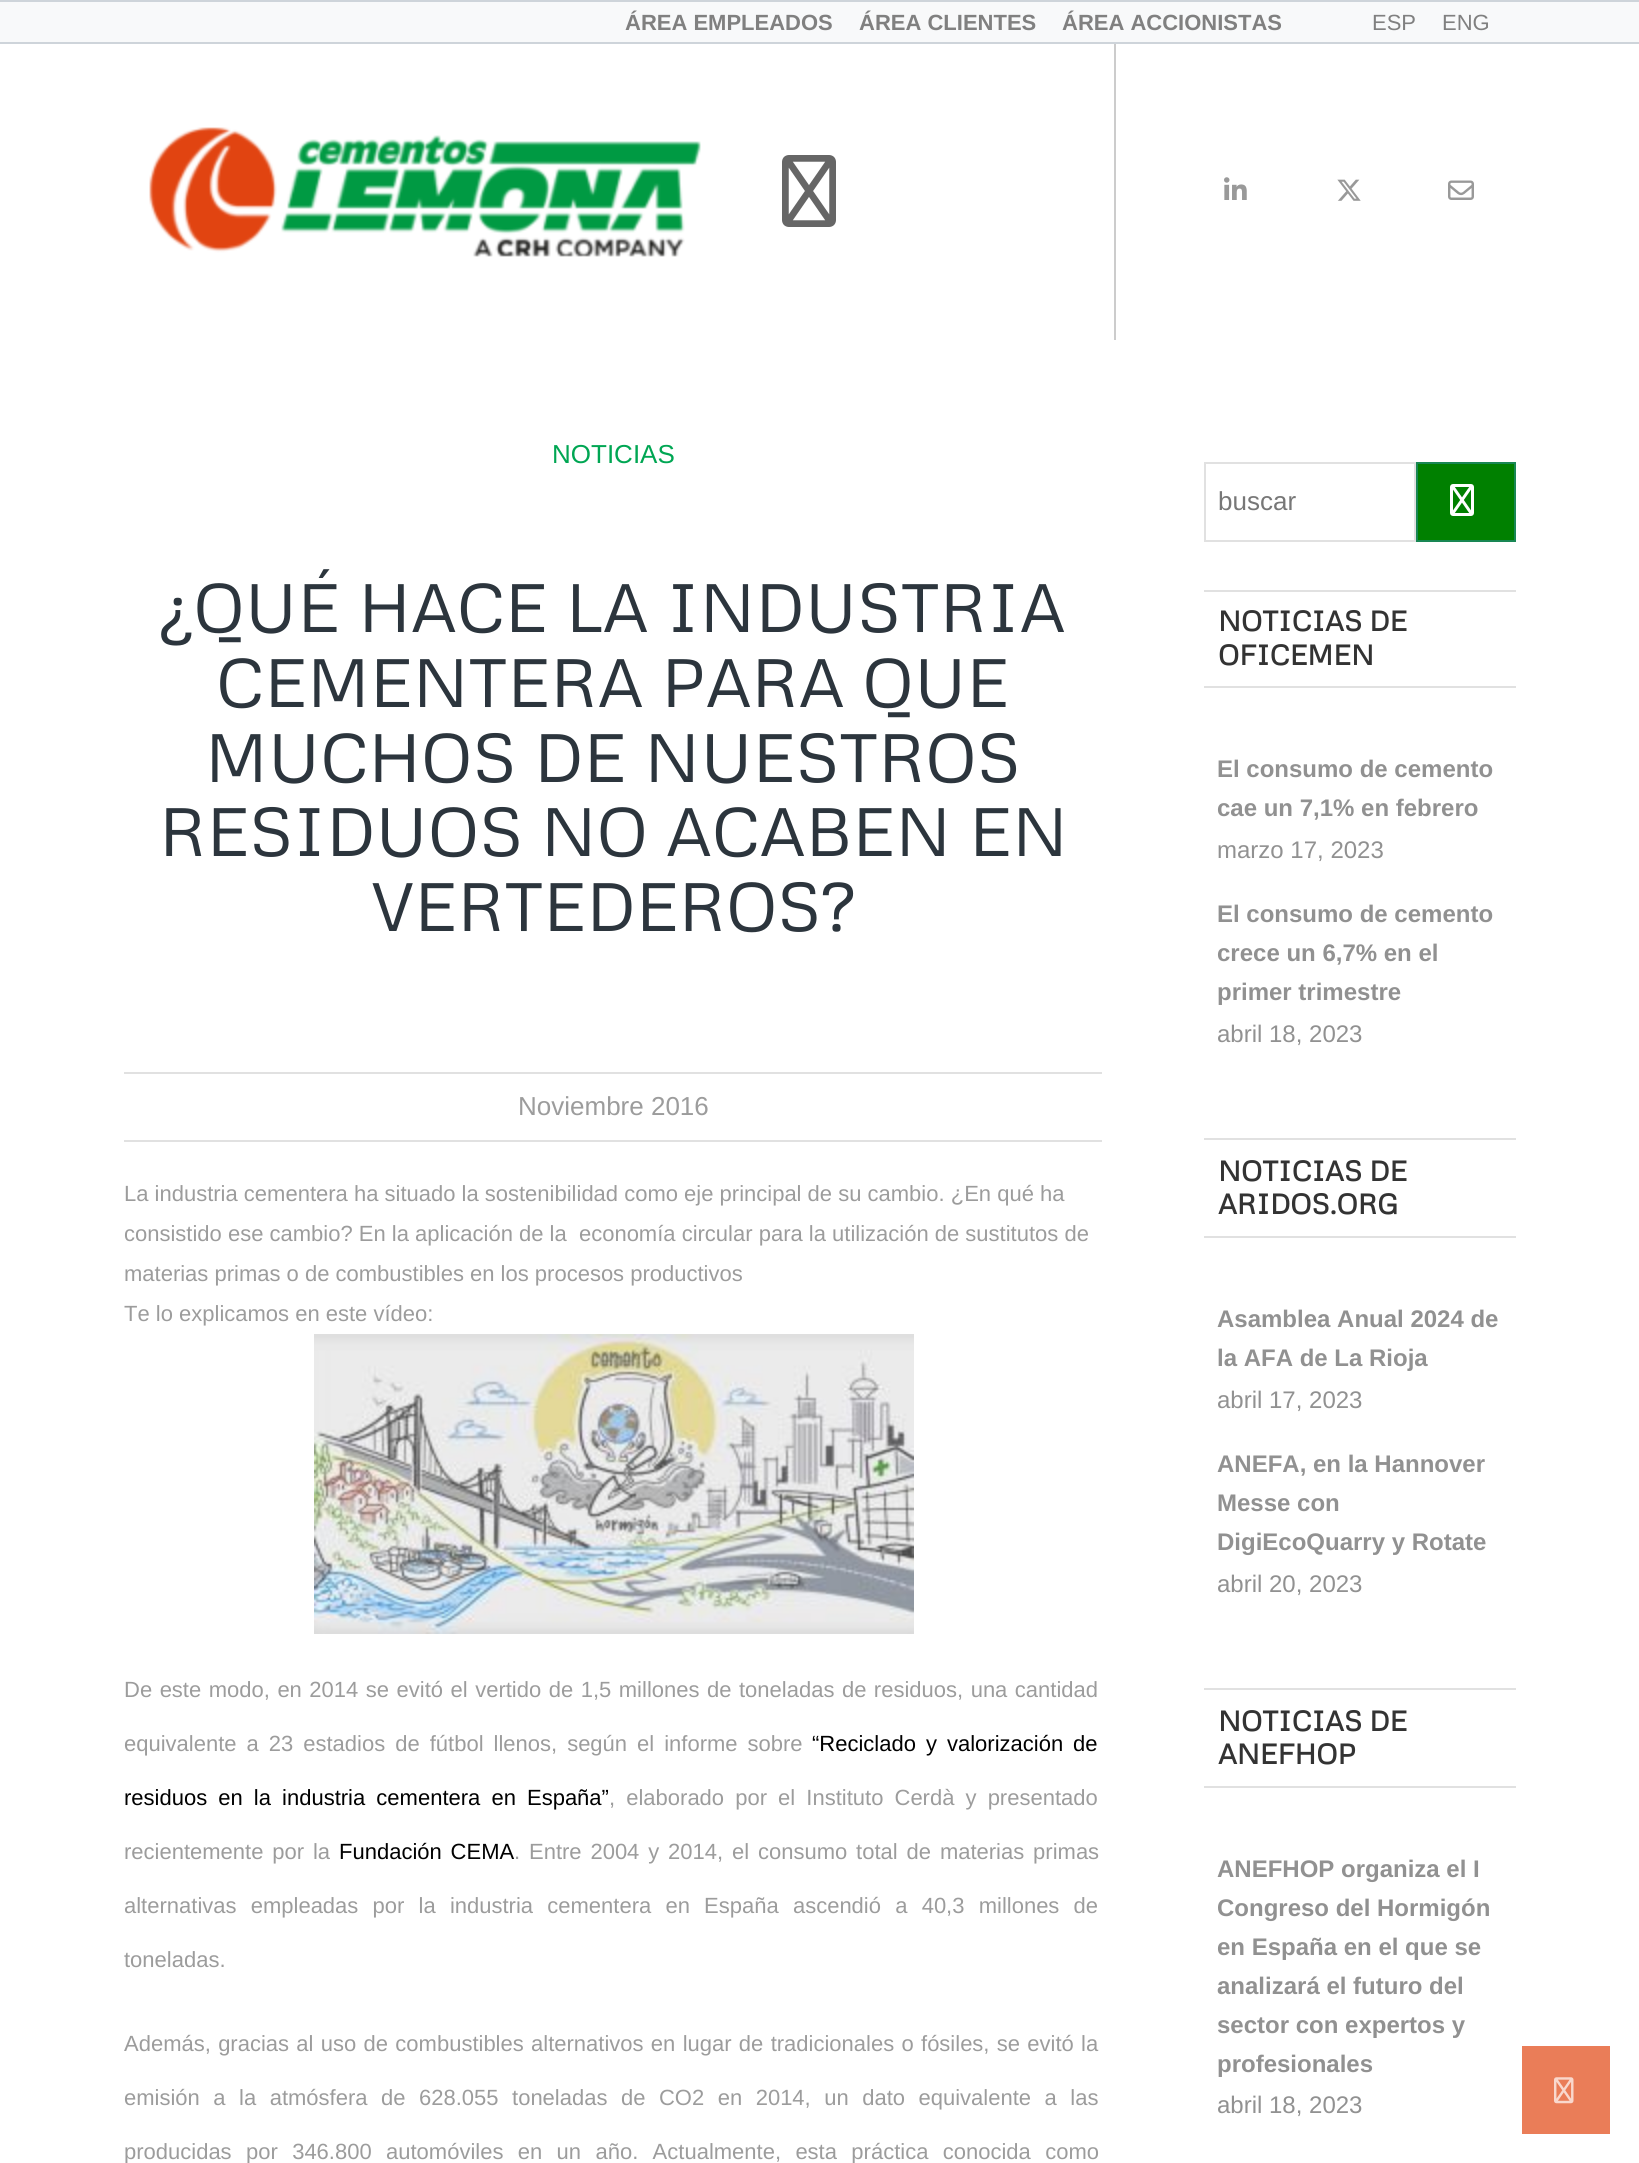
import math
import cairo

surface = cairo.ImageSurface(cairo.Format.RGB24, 1639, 2163)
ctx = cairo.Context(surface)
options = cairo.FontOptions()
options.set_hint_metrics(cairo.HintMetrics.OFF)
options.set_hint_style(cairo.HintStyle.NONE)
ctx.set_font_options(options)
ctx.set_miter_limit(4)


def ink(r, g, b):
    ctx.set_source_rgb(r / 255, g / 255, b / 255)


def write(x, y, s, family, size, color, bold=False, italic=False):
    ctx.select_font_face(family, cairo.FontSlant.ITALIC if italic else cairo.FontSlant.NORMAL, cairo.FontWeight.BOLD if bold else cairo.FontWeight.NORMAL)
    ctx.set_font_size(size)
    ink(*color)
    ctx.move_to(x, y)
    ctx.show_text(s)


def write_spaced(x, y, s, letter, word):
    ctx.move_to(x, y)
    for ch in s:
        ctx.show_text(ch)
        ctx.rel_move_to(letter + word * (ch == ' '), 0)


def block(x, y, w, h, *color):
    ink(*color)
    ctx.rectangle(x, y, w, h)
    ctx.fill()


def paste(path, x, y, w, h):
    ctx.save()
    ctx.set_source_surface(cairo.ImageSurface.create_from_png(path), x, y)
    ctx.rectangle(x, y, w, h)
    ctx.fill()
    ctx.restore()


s1 = dict(family="Liberation Sans", size=22, color=(128, 128, 128), bold=True)
s2 = dict(family="Liberation Sans", size=22, color=(128, 128, 128))
s3 = dict(family="Liberation Sans", size=26, color=(0, 166, 83))
s4 = dict(family="Metrophobic", size=68, color=(44, 53, 61))
s5 = dict(family="Liberation Sans", size=26, color=(156, 156, 156))
s6 = dict(family="Liberation Sans", size=22, color=(156, 156, 156))
s7 = dict(family="Liberation Sans", size=26, color=(119, 119, 119))
s8 = dict(family="Metrophobic", size=28, color=(51, 51, 51), bold=True)
s9 = dict(family="Liberation Sans", size=24, color=(145, 145, 145), bold=True)
s10 = dict(family="Liberation Sans", size=24, color=(145, 145, 145))

ink(255, 255, 255)
ctx.paint()
block(0, 2, 1639, 40, 248, 249, 250)
block(0, 0, 1639, 2, 206, 212, 218)
block(0, 42, 1639, 2, 206, 212, 218)
write(625, 30, "ÁREA EMPLEADOS", **s1)
write(859, 30, "ÁREA CLIENTES", **s1)
write(1062, 30, "ÁREA ACCIONISTAS", **s1)
write(1372, 30, "ESP", **s2)
write(1442, 30, "ENG", **s2)
paste("pic1.png", 149, 127, 552, 130)
paste("pic2.png", 782, 155, 54, 72)
block(1114, 44, 2, 296, 204, 204, 204)
paste("pic3.png", 1224, 177, 23, 23)
paste("pic4.png", 1337, 179, 24, 22)
paste("pic5.png", 1448, 180, 26, 20)
write(552, 463, "NOTICIAS", **s3)
write(160, 632, "¿QUÉ HACE LA INDUSTRIA", **s4)
write(216, 707, "CEMENTERA PARA QUE", **s4)
write(205, 782, "MUCHOS DE NUESTROS", **s4)
write(159, 856, "RESIDUOS NO ACABEN EN", **s4)
write(371, 931, "VERTEDEROS?", **s4)
block(124, 1072, 978, 2, 225, 225, 225)
block(124, 1140, 978, 2, 225, 225, 225)
write(518, 1115, "Noviembre 2016", **s5)
write(124, 1201, "La industria cementera ha situado la sostenibilidad como eje principal de su cambio. ¿En qué ha", **s6)
write(124, 1241, "consistido ese cambio? En la aplicación de la  economía circular para la utilización de sustitutos de", **s6)
write(124, 1281, "materias primas o de combustibles en los procesos productivos", **s6)
write(124, 1321, "Te lo explicamos en este vídeo:", **s6)
paste("pic6.png", 314, 1334, 600, 300)
write_spaced(124, 1697, "De este modo, en 2014 se evitó el vertido de 1,5 millones de toneladas de residuos, una cantidad", 0, 1.4)
write_spaced(124, 1751, "equivalente a 23 estadios de fútbol llenos, según el informe sobre", 0, 3.9)
ink(0, 0, 0)
write_spaced(812, 1751, "“Reciclado y valorización de", 0, 3.9)
write_spaced(124, 1805, "residuos en la industria cementera en España”", 0, 5)
ink(156, 156, 156)
write_spaced(609, 1805, ", elaborado por el Instituto Cerdà y presentado", 0, 5)
write_spaced(124, 1859, "recientemente por la", 0, 2.75)
ink(0, 0, 0)
write_spaced(339, 1859, "Fundación CEMA", 0, 2.75)
ink(156, 156, 156)
write_spaced(514, 1859, ". Entre 2004 y 2014, el consumo total de materias primas", 0, 2.75)
write_spaced(124, 1913, "alternativas empleadas por la industria cementera en España ascendió a 40,3 millones de", 0, 8.1)
write(124, 1967, "toneladas.", **s6)
write_spaced(124, 2051, "Además, gracias al uso de combustibles alternativos en lugar de tradicionales o fósiles, se evitó la", 0, 1.2)
write_spaced(124, 2105, "emisión a la atmósfera de 628.055 toneladas de CO2 en 2014, un dato equivalente a las", 0, 7.4)
write_spaced(124, 2159, "producidas por 346.800 automóviles en un año. Actualmente, esta práctica conocida como", 0, 8.25)
ctx.rectangle(1205, 463, 210, 78)
ink(225, 225, 225)
ctx.stroke()
write(1218, 510, "buscar", **s7)
ink(0, 128, 0)
ctx.rectangle(1417, 463, 98, 78)
ctx.fill_preserve()
ink(25, 135, 84)
ctx.stroke()
paste("pic7.png", 1450, 484, 24, 32)
block(1204, 590, 312, 2, 225, 225, 225)
block(1204, 686, 312, 2, 225, 225, 225)
write(1218, 631, "NOTICIAS DE", **s8)
write(1218, 665, "OFICEMEN", **s8)
write(1217, 777, "El consumo de cemento", **s9)
write(1217, 816, "cae un 7,1% en febrero", **s9)
write(1217, 858, "marzo 17, 2023", **s10)
write(1217, 922, "El consumo de cemento", **s9)
write(1217, 961, "crece un 6,7% en el", **s9)
write(1217, 1000, "primer trimestre", **s9)
write(1217, 1042, "abril 18, 2023", **s10)
block(1204, 1138, 312, 2, 225, 225, 225)
block(1204, 1236, 312, 2, 225, 225, 225)
write(1218, 1181, "NOTICIAS DE", **s8)
write(1218, 1214, "ARIDOS.ORG", **s8)
write(1217, 1327, "Asamblea Anual 2024 de", **s9)
write(1217, 1366, "la AFA de La Rioja", **s9)
write(1217, 1408, "abril 17, 2023", **s10)
write(1217, 1472, "ANEFA, en la Hannover", **s9)
write(1217, 1511, "Messe con", **s9)
write(1217, 1550, "DigiEcoQuarry y Rotate", **s9)
write(1217, 1592, "abril 20, 2023", **s10)
block(1204, 1688, 312, 2, 225, 225, 225)
block(1204, 1786, 312, 2, 225, 225, 225)
write(1218, 1731, "NOTICIAS DE", **s8)
write(1218, 1764, "ANEFHOP", **s8)
write(1217, 1877, "ANEFHOP organiza el I", **s9)
write(1217, 1916, "Congreso del Hormigón", **s9)
write(1217, 1955, "en España en el que se", **s9)
write(1217, 1994, "analizará el futuro del", **s9)
write(1217, 2033, "sector con expertos y", **s9)
write(1217, 2072, "profesionales", **s9)
write(1217, 2113, "abril 18, 2023", **s10)
block(1522, 2046, 88, 88, 234, 125, 88)
paste("pic8.png", 1554, 2077, 20, 27)
surface.write_to_png("screenshot.png")
